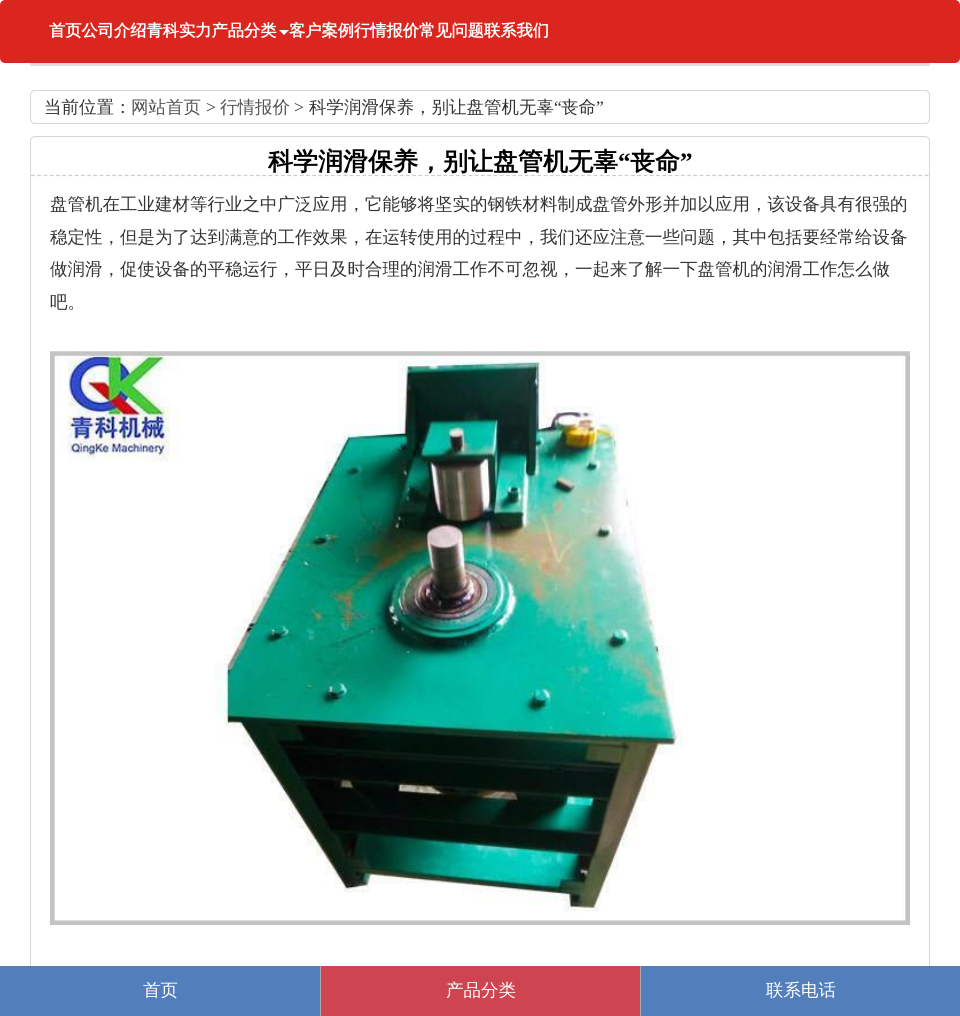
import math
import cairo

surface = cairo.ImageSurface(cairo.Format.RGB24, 960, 1016)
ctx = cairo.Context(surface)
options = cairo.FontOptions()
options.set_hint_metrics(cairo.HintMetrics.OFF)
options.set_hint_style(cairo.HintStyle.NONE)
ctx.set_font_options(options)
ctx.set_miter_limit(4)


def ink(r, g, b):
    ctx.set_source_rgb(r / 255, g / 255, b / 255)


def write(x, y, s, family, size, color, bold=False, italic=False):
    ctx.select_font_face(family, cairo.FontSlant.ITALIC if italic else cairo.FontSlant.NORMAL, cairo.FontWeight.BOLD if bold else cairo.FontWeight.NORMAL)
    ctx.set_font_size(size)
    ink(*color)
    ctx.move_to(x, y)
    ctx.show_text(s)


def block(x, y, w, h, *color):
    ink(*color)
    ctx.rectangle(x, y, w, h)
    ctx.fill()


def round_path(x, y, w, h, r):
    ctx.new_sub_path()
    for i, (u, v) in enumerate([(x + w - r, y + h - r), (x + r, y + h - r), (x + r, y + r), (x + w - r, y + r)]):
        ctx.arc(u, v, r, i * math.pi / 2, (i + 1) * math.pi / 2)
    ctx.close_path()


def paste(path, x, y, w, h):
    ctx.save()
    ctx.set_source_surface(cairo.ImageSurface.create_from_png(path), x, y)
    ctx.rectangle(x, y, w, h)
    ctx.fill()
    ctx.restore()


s1 = dict(family="WenQuanYi Zen Hei", size=16.25, color=(255, 255, 255), bold=True)
s2 = dict(family="WenQuanYi Zen Hei Medium", size=17.5, color=(51, 51, 51))
s3 = dict(family="WenQuanYi Zen Hei Medium", size=17.5, color=(83, 83, 83))
s4 = dict(family="Liberation Serif", size=17.5, color=(51, 51, 51))
s5 = dict(family="WenQuanYi Zen Hei", size=25, color=(0, 0, 0), bold=True)
s6 = dict(family="Liberation Serif", size=25, color=(0, 0, 0), bold=True)
s7 = dict(family="WenQuanYi Zen Hei Medium", size=17.5, color=(255, 255, 255))

ink(255, 255, 255)
ctx.paint()
ink(219, 38, 31)
round_path(0, 0, 960, 63, 5)
ctx.fill()
write(49, 36, "首页公司介绍青科实力产品分类", **s1)
ctx.new_path()
ctx.move_to(279, 30)
ctx.line_to(289, 30)
ctx.line_to(284, 35)
ctx.close_path()
ctx.fill()
write(289, 36, "客户案例行情报价常见问题联系我们", **s1)
ink(221, 221, 221)
round_path(30, 63, 900, 3, 1.5)
ctx.fill()
round_path(30.5, 90.5, 899, 33, 4.5)
ink(213, 213, 213)
ctx.set_line_width(1)
ctx.stroke()
write(44, 113, "当前位置：", **s2)
write(131, 113, "网站首页", **s3)
write(206, 113, ">", **s4)
write(220, 113, "行情报价", **s3)
write(294, 113, ">", **s4)
write(309, 113, "科学润滑保养，别让盘管机无辜", **s2)
write(554, 113, "“", **s4)
write(561, 113, "丧命", **s2)
write(596, 113, "”", **s4)
round_path(30.5, 136.5, 899, 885, 4.5)
ink(213, 213, 213)
ctx.stroke()
ctx.new_path()
ctx.move_to(31, 175.5)
ctx.line_to(929, 175.5)
ink(204, 204, 204)
ctx.set_line_width(1.2)
ctx.set_dash([3.75, 2.5])
ctx.stroke()
write(268, 170, "科学润滑保养，别让盘管机无辜", **s5)
write(618, 170, "“", **s6)
write(630, 170, "丧命", **s5)
write(680, 170, "”", **s6)
write(50, 210, "盘管机在工业建材等行业之中广泛应用，它能够将坚实的钢铁材料制成盘管外形并加以应用，该设备具有很强的", **s2)
write(50, 243, "稳定性，但是为了达到满意的工作效果，在运转使用的过程中，我们还应注意一些问题，其中包括要经常给设备", **s2)
write(50, 275, "做润滑，促使设备的平稳运行，平日及时合理的润滑工作不可忽视，一起来了解一下盘管机的润滑工作怎么做", **s2)
write(50, 308, "吧。", **s2)
paste("pic1.png", 50, 351, 860, 574)
block(0, 966, 960, 50, 82, 126, 187)
write(143, 996, "首页", **s7)
block(321, 966, 319, 50, 206, 68, 81)
block(320, 966, 1, 50, 170, 170, 170)
write(446, 996, "产品分类", **s7)
block(640, 966, 1, 50, 170, 170, 170)
write(766, 996, "联系电话", **s7)
surface.write_to_png("screenshot.png")
